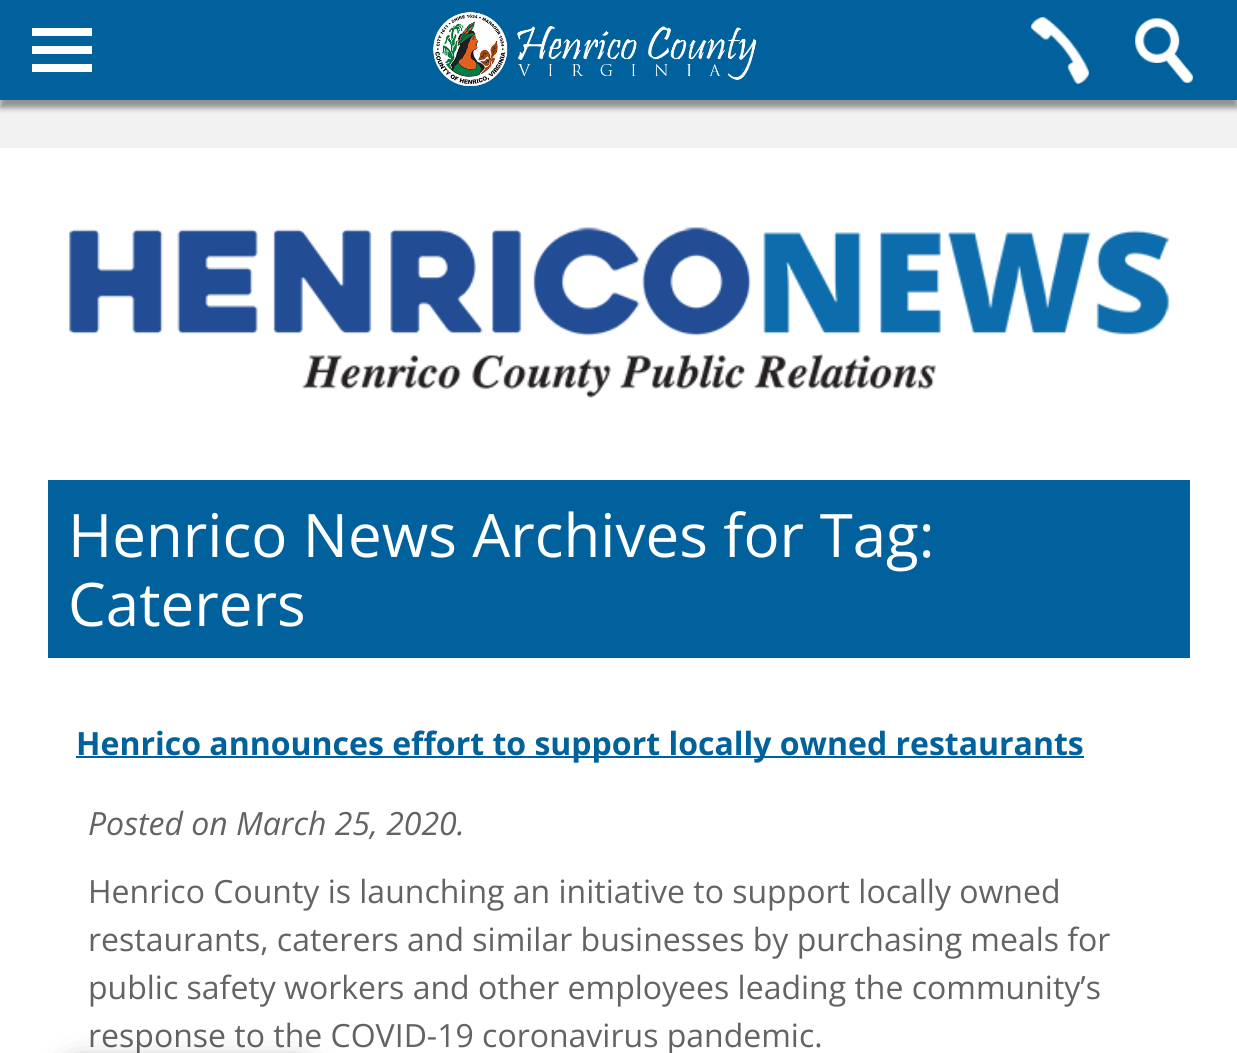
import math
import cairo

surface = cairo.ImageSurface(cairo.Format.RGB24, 1237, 1053)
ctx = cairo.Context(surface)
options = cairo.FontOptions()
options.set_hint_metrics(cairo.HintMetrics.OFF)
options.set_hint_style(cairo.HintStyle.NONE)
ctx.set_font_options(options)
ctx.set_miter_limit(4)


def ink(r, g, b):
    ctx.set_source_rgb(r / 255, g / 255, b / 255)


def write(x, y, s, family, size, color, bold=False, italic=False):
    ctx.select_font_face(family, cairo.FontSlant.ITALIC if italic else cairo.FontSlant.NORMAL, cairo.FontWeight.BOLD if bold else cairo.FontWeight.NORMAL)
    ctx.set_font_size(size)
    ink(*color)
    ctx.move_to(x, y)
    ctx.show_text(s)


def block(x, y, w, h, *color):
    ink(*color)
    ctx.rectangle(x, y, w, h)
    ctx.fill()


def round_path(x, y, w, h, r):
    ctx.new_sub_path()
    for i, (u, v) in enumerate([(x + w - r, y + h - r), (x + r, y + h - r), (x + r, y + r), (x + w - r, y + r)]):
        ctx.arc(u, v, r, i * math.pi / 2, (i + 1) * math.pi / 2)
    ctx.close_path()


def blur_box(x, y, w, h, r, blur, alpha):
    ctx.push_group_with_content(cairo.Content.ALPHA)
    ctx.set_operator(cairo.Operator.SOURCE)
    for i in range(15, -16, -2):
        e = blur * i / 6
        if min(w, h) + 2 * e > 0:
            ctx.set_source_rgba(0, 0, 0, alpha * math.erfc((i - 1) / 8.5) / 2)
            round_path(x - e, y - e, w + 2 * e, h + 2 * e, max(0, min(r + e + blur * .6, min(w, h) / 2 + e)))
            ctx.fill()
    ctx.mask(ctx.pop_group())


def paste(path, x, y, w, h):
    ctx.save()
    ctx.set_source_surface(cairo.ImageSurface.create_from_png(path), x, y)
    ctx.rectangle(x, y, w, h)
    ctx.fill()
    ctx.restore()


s1 = dict(family="Open Sans", size=60, color=(255, 255, 255))
s2 = dict(family="Open Sans", size=32, color=(1, 97, 157), bold=True)
s3 = dict(family="Open Sans", size=32, color=(100, 98, 98), italic=True)
s4 = dict(family="Open Sans", size=32, color=(100, 98, 98))

ink(242, 242, 242)
ctx.paint()
ink(0, 0, 0)
blur_box(0, 8, 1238, 100, 0, 3, 0.4)
block(0, 0, 1237, 100, 1, 97, 157)
block(32, 28, 60, 8, 255, 255, 255)
block(32, 46, 60, 8, 255, 255, 255)
block(32, 64, 60, 8, 255, 255, 255)
paste("pic1.png", 433, 12, 324, 74)
paste("pic2.png", 1030, 17, 59, 67)
paste("pic3.png", 1135, 18, 58, 65)
block(0, 148, 1237, 905, 255, 255, 255)
paste("pic4.png", 69, 227, 1101, 171)
block(48, 480, 1142, 178, 1, 97, 157)
write(68, 557, "Henrico News Archives for Tag:", **s1)
write(68, 626, "Caterers", **s1)
block(76, 756, 1008, 2, 1, 97, 157)
write(76, 755, "Henrico announces effort to support locally owned restaurants", **s2)
write(88, 835, "Posted on March 25, 2020.", **s3)
write(88, 903, "Henrico County is launching an initiative to support locally owned", **s4)
write(88, 951, "restaurants, caterers and similar businesses by purchasing meals for", **s4)
write(88, 999, "public safety workers and other employees leading the community’s", **s4)
write(88, 1047, "response to the COVID-19 coronavirus pandemic.", **s4)
ink(0, 0, 0)
blur_box(58, 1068, 260, 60, 30, 15, 0.5)
surface.write_to_png("screenshot.png")
